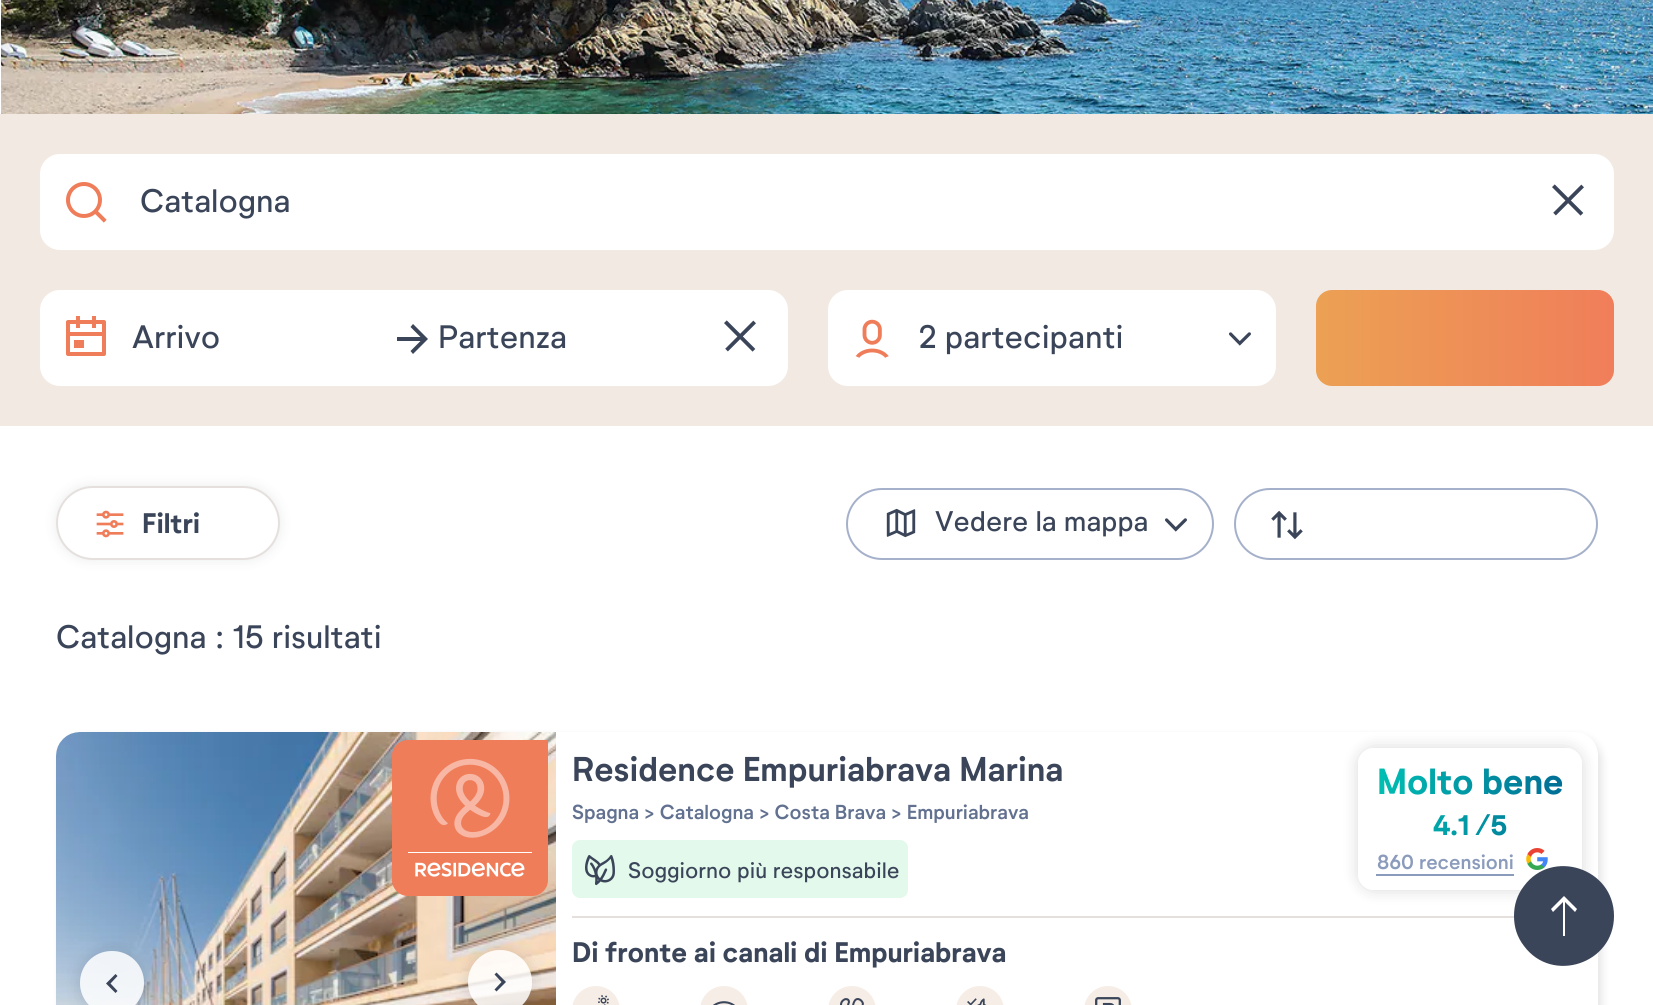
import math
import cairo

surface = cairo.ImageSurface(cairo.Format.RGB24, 1653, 1005)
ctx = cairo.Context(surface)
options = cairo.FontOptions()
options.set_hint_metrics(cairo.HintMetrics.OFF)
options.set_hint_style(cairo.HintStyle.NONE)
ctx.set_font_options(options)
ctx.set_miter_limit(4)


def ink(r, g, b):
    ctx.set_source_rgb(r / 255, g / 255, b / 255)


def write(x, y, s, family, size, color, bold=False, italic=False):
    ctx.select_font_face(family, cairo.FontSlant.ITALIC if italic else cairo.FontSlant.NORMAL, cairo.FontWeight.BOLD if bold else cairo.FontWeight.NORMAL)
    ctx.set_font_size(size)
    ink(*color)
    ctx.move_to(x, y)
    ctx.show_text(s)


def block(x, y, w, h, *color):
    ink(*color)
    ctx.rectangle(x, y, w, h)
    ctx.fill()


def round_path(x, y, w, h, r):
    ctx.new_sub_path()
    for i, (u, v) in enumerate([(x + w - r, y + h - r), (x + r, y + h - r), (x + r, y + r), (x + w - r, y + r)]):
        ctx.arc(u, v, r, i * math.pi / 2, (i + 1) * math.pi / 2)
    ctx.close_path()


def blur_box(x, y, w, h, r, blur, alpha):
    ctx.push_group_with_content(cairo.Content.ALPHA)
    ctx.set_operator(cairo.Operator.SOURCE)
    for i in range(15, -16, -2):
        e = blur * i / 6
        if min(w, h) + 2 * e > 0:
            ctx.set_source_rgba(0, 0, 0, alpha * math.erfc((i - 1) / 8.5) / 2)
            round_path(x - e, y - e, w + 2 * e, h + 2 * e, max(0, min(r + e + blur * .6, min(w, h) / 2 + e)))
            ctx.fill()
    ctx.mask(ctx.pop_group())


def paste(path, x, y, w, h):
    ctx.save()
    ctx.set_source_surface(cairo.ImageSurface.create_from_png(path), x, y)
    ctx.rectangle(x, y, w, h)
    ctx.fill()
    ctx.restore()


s1 = dict(family="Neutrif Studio", size=32, color=(59, 69, 89))
s2 = dict(family="Neutrif Studio", size=28, color=(59, 69, 89), bold=True)
s3 = dict(family="Neutrif Studio", size=28, color=(59, 69, 89))
s4 = dict(family="Neutrif Studio SemiBold", size=34, color=(59, 69, 89))
s5 = dict(family="Neutrif Studio Medium", size=20, color=(98, 113, 144))
s6 = dict(family="Neutrif Studio", size=22, color=(59, 69, 89))
s7 = dict(family="Neutrif Studio Medium", size=20, color=(139, 155, 188))

ink(255, 255, 255)
ctx.paint()
paste("pic1.png", 1, 0, 1652, 114)
block(0, 114, 1653, 312, 242, 234, 226)
ink(255, 255, 255)
round_path(42, 156, 1570, 92, 18)
ctx.fill_preserve()
ctx.set_line_width(4)
ctx.stroke()
paste("pic2.png", 66, 182, 41, 41)
write(140, 212, "Catalogna", **s1)
paste("pic3.png", 1552, 184, 32, 32)
ink(255, 255, 255)
round_path(42, 292, 744, 92, 18)
ctx.fill_preserve()
ctx.stroke()
paste("pic4.png", 66, 316, 40, 40)
write(132, 348, "Arrivo", **s1)
ctx.new_path()
ctx.move_to(420.5, 337)
ctx.line_to(410.5, 327)
ctx.line_to(413, 324)
ctx.line_to(428, 339)
ctx.line_to(413, 354)
ctx.line_to(410.5, 351)
ctx.line_to(420.5, 341)
ctx.line_to(397, 341)
ctx.line_to(397, 337)
ctx.close_path()
ctx.fill()
write(438, 348, "Partenza", **s1)
paste("pic3.png", 724, 320, 32, 32)
ink(255, 255, 255)
round_path(830, 292, 444, 92, 18)
ctx.fill_preserve()
ctx.stroke()
paste("pic5.png", 855, 319, 34, 39)
write(919, 348, "2 partecipanti", **s1)
paste("pic6.png", 1229, 332, 22, 14)
gradient = cairo.LinearGradient(1316, 338, 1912, 338)
gradient.add_color_stop_rgba(0, 0.925, 0.631, 0.329, 1)
gradient.add_color_stop_rgba(0.51, 0.941, 0.49, 0.353, 1)
gradient.add_color_stop_rgba(1, 0.925, 0.631, 0.329, 1)
ctx.set_source(gradient)
round_path(1316, 290, 298, 96, 16)
ctx.fill()
ink(47, 55, 72)
blur_box(56, 486, 224, 74, 37, 6, 0.1)
ink(255, 255, 255)
round_path(57, 487, 222, 72, 36)
ctx.fill_preserve()
ink(229, 224, 222)
ctx.set_line_width(2)
ctx.stroke()
paste("pic7.png", 96, 510, 28, 28)
write(142, 533, "Filtri", **s2)
round_path(847, 489, 366, 70, 35)
ink(165, 176, 202)
ctx.stroke()
paste("pic8.png", 886, 508, 30, 30)
write(935, 531, "Vedere la mappa", **s3)
paste("pic6.png", 1165, 518, 22, 14)
round_path(1235, 489, 362, 70, 35)
ink(165, 176, 202)
ctx.stroke()
paste("pic9.png", 1271, 510, 32, 30)
write(56, 648, "Catalogna : 15 risultati", **s1)
ctx.save()
ctx.set_fill_rule(cairo.FillRule.EVEN_ODD)
ctx.new_path()
ctx.move_to(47, 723)
ctx.line_to(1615, 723)
ctx.line_to(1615, 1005)
ctx.line_to(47, 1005)
ctx.close_path()
ctx.move_to(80, 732)
ctx.line_to(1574, 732)
ctx.curve_to(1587.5, 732, 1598, 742.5, 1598, 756)
ctx.line_to(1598, 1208)
ctx.curve_to(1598, 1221.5, 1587.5, 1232, 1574, 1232)
ctx.line_to(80, 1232)
ctx.curve_to(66.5, 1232, 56, 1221.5, 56, 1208)
ctx.line_to(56, 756)
ctx.curve_to(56, 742.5, 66.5, 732, 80, 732)
ctx.close_path()
ctx.clip()
ink(0, 0, 0)
blur_box(60, 736, 1542, 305, 24, 4, 0.1)
ctx.restore()
paste("pic10.png", 56, 732, 500, 273)
ctx.save()
ctx.set_fill_rule(cairo.FillRule.EVEN_ODD)
ctx.new_path()
ctx.move_to(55, 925)
ctx.line_to(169, 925)
ctx.line_to(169, 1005)
ctx.line_to(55, 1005)
ctx.close_path()
ctx.move_to(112, 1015)
ctx.curve_to(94.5, 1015, 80, 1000.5, 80, 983)
ctx.curve_to(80, 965, 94.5, 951, 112, 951)
ctx.curve_to(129.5, 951, 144, 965, 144, 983)
ctx.curve_to(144, 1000.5, 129.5, 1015, 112, 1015)
ctx.close_path()
ctx.clip()
ink(47, 55, 72)
blur_box(80, 950, 64, 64, 32, 8, 0.16)
ctx.restore()
ctx.set_source_rgba(1, 1, 1, 0.84)
ctx.new_path()
ctx.move_to(112, 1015)
ctx.curve_to(94, 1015, 80, 1000, 80, 983)
ctx.curve_to(80, 965, 94, 951, 112, 951)
ctx.curve_to(130, 951, 144, 965, 144, 983)
ctx.curve_to(144, 1000, 130, 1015, 112, 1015)
ctx.close_path()
ctx.fill()
ink(59, 69, 89)
ctx.new_path()
ctx.move_to(110.5, 983.5)
ctx.line_to(117.5, 991)
ctx.line_to(115.5, 993)
ctx.line_to(106, 983.5)
ctx.line_to(115.5, 974)
ctx.line_to(117.5, 976)
ctx.close_path()
ctx.fill()
ctx.save()
ctx.set_fill_rule(cairo.FillRule.EVEN_ODD)
ctx.new_path()
ctx.move_to(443, 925)
ctx.line_to(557, 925)
ctx.line_to(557, 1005)
ctx.line_to(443, 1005)
ctx.close_path()
ctx.move_to(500, 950)
ctx.curve_to(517.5, 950, 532, 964.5, 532, 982)
ctx.curve_to(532, 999.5, 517.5, 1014, 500, 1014)
ctx.curve_to(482.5, 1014, 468, 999.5, 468, 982)
ctx.curve_to(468, 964.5, 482.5, 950, 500, 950)
ctx.close_path()
ctx.clip()
ink(47, 55, 72)
blur_box(468, 950, 64, 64, 32, 8, 0.16)
ctx.restore()
ctx.set_source_rgba(1, 1, 1, 0.84)
ctx.arc(500, 982, 32, 0, 2 * math.pi)
ctx.fill()
ink(59, 69, 89)
ctx.new_path()
ctx.move_to(501.5, 982)
ctx.line_to(494.5, 974.5)
ctx.line_to(496.5, 972.5)
ctx.line_to(506, 982)
ctx.line_to(496.5, 991.5)
ctx.line_to(494.5, 989.5)
ctx.close_path()
ctx.fill()
paste("pic11.png", 392, 740, 156, 156)
write(572, 781, "Residence Empuriabrava Marina", **s4)
write(572, 819, "Spagna > Catalogna > Costa Brava > Empuriabrava", **s5)
ink(227, 249, 235)
round_path(573, 841, 334, 56, 7)
ctx.fill_preserve()
ctx.stroke()
paste("pic12.png", 585, 855, 30, 31)
write(628, 878, "Soggiorno più responsabile", **s6)
ctx.save()
ctx.set_fill_rule(cairo.FillRule.EVEN_ODD)
ctx.new_path()
ctx.move_to(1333, 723)
ctx.line_to(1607, 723)
ctx.line_to(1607, 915)
ctx.line_to(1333, 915)
ctx.close_path()
ctx.move_to(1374, 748)
ctx.line_to(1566, 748)
ctx.curve_to(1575, 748, 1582, 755, 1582, 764)
ctx.line_to(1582, 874)
ctx.curve_to(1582, 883, 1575, 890, 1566, 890)
ctx.line_to(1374, 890)
ctx.curve_to(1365, 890, 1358, 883, 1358, 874)
ctx.line_to(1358, 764)
ctx.curve_to(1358, 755, 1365, 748, 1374, 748)
ctx.close_path()
ctx.clip()
ink(0, 0, 0)
blur_box(1358, 748, 224, 142, 16, 8, 0.15)
ctx.restore()
ctx.select_font_face("Neutrif Studio", cairo.FontSlant.NORMAL, cairo.FontWeight.BOLD)
ctx.set_font_size(36)
gradient = cairo.LinearGradient(1377, 784, 1563, 784)
gradient.add_color_stop_rgba(0, 0, 0.749, 0.702, 1)
gradient.add_color_stop_rgba(0.97, 0.004, 0.439, 0.588, 1)
ctx.set_source(gradient)
ctx.move_to(1377, 794)
ctx.show_text("Molto bene")
ctx.set_font_size(28)
gradient = cairo.LinearGradient(1377, 826, 1563, 826)
gradient.add_color_stop_rgba(0, 0, 0.749, 0.702, 1)
gradient.add_color_stop_rgba(0.97, 0.004, 0.439, 0.588, 1)
ctx.set_source(gradient)
ctx.move_to(1433, 835)
ctx.show_text("4.1")
ctx.move_to(1475, 835)
ctx.show_text("/5")
write(1377, 869, "860 recensioni", **s7)
block(1376, 874, 138, 2, 139, 155, 188)
paste("pic13.png", 1526, 848, 22, 22)
block(572, 916, 943, 2, 229, 224, 222)
write(572, 962, "Di fronte ai canali di Empuriabrava", **s2)
paste("pic14.png", 572, 986, 48, 19)
paste("pic15.png", 700, 986, 48, 19)
paste("pic16.png", 828, 986, 48, 19)
paste("pic17.png", 956, 986, 48, 19)
paste("pic18.png", 1084, 986, 48, 19)
ink(255, 255, 255)
ctx.arc(1564, 916, 40, 0, 2 * math.pi)
ctx.fill()
ink(59, 69, 89)
ctx.new_path()
ctx.move_to(1614, 916)
ctx.curve_to(1614, 964, 1552, 984, 1524, 946)
ctx.curve_to(1517, 937, 1514, 927, 1514, 916)
ctx.curve_to(1514, 905, 1517, 895, 1524, 886)
ctx.curve_to(1552, 848, 1614, 868, 1614, 916)
ctx.close_path()
ctx.move_to(1564, 896)
ctx.line_to(1551, 909)
ctx.line_to(1553, 912)
ctx.line_to(1563, 902)
ctx.line_to(1563, 936)
ctx.line_to(1565, 936)
ctx.line_to(1565, 902)
ctx.line_to(1575, 912)
ctx.line_to(1577, 909)
ctx.close_path()
ctx.fill()
surface.write_to_png("screenshot.png")
